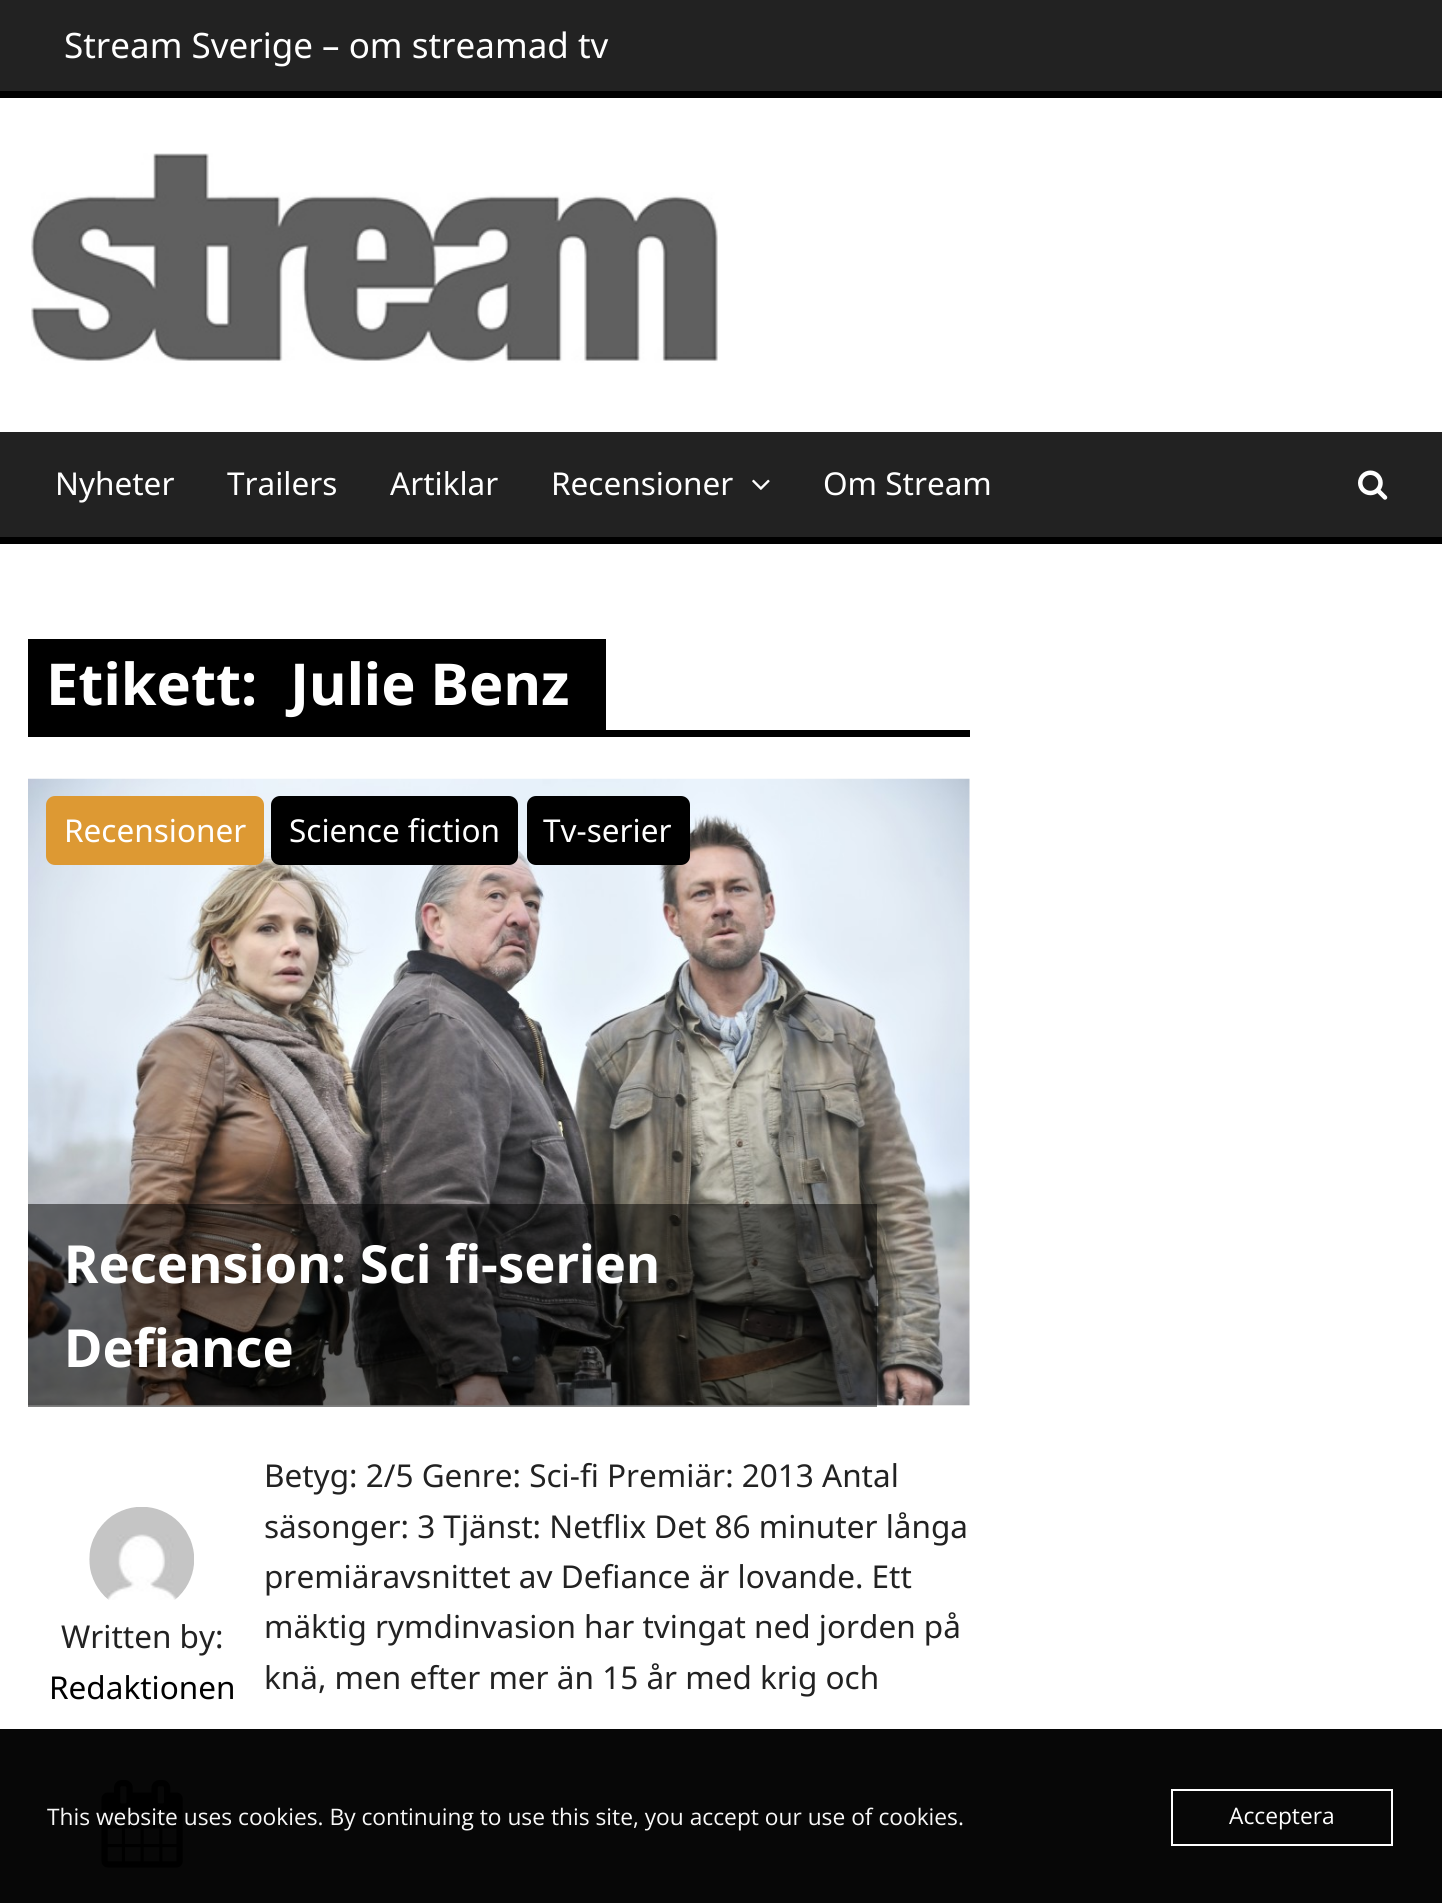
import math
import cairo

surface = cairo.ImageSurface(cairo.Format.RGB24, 1442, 1903)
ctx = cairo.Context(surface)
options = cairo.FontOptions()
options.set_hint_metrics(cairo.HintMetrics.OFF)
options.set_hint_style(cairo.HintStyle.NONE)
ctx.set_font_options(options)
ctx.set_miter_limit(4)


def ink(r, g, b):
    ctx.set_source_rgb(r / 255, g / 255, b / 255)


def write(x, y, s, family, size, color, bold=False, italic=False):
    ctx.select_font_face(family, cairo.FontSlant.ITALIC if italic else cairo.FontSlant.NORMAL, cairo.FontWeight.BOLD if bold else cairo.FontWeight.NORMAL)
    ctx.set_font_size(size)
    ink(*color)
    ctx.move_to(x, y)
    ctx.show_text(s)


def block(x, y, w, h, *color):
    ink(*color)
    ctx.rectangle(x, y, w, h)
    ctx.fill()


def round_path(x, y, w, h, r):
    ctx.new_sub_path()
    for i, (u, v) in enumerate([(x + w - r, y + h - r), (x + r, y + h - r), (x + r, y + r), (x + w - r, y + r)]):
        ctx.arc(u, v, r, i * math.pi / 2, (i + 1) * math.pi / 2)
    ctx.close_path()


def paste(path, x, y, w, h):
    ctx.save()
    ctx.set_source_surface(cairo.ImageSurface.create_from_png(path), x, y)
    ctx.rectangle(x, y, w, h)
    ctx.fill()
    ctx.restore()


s1 = dict(family="Noto Sans", size=35, color=(255, 255, 255))
s2 = dict(family="Noto Sans", size=31.5, color=(255, 255, 255))
s3 = dict(family="Noto Sans", size=57.75, color=(255, 255, 255), bold=True)
s4 = dict(family="Noto Sans", size=52.5, color=(255, 255, 255), bold=True)
s5 = dict(family="Noto Sans", size=31.5, color=(34, 34, 34))
s6 = dict(family="Noto Sans", size=31.5, color=(0, 0, 0))
s7 = dict(family="Open Sans", size=22.75, color=(248, 248, 248))
s8 = dict(family="Open Sans", size=22.75, color=(255, 255, 255))

ink(34, 34, 34)
ctx.paint()
block(0, 91, 1442, 7, 0, 0, 0)
write(64, 58, "Stream Sverige – om streamad tv", **s1)
block(0, 98, 1442, 334, 255, 255, 255)
paste("pic1.png", 31, 153, 687, 210)
block(0, 537, 1442, 7, 0, 0, 0)
write(55, 495, "Nyheter", **s2)
write(227, 495, "Trailers", **s2)
write(390, 495, "Artiklar", **s2)
write(551, 495, "Recensioner", **s2)
paste("pic2.png", 752, 479, 18, 11)
write(823, 495, "Om Stream", **s2)
paste("pic3.png", 1358, 470, 30, 30)
block(0, 544, 1442, 1359, 255, 255, 255)
block(28, 730, 942, 7, 0, 0, 0)
block(28, 639, 578, 91, 0, 0, 0)
write(46, 705, "Etikett:", **s3)
write(290, 705, "Julie Benz", **s3)
paste("pic4.png", 28, 778, 942, 628)
ink(221, 153, 51)
round_path(46, 796, 218, 69, 9)
ctx.fill()
write(64, 842, "Recensioner", **s2)
ink(0, 0, 0)
round_path(271, 796, 247, 69, 9)
ctx.fill()
write(289, 842, "Science fiction", **s2)
ink(0, 0, 0)
round_path(527, 796, 163, 69, 9)
ctx.fill()
write(543, 842, "Tv-serier", **s2)
ctx.set_source_rgba(0, 0, 0, 0.5)
ctx.rectangle(28, 1204, 849, 203)
ctx.fill()
write(64, 1283, "Recension: Sci fi-serien", **s4)
write(64, 1367, "Defiance", **s4)
paste("pic5.png", 89, 1507, 105, 93)
write(61, 1648, "Written by:", **s5)
write(49, 1699, "Redaktionen", **s6)
paste("pic6.png", 101, 1780, 82, 88)
write(264, 1487, "Betyg: 2/5 Genre: Sci-fi Premiär: 2013 Antal", **s5)
write(264, 1538, "säsonger: 3 Tjänst: Netflix Det 86 minuter långa", **s5)
write(264, 1588, "premiäravsnittet av Defiance är lovande. Ett", **s5)
write(264, 1638, "mäktig rymdinvasion har tvingat ned jorden på", **s5)
write(264, 1689, "knä, men efter mer än 15 år med krig och", **s5)
ctx.set_source_rgba(0, 0, 0, 0.97)
ctx.rectangle(0, 1729, 1442, 174)
ctx.fill()
write(47, 1825, "This website uses cookies. By continuing to use this site, you accept our use of cookies.", **s7)
ctx.rectangle(1172, 1790, 220, 55)
ink(255, 255, 255)
ctx.stroke()
write(1229, 1824, "Acceptera", **s8)
surface.write_to_png("screenshot.png")
